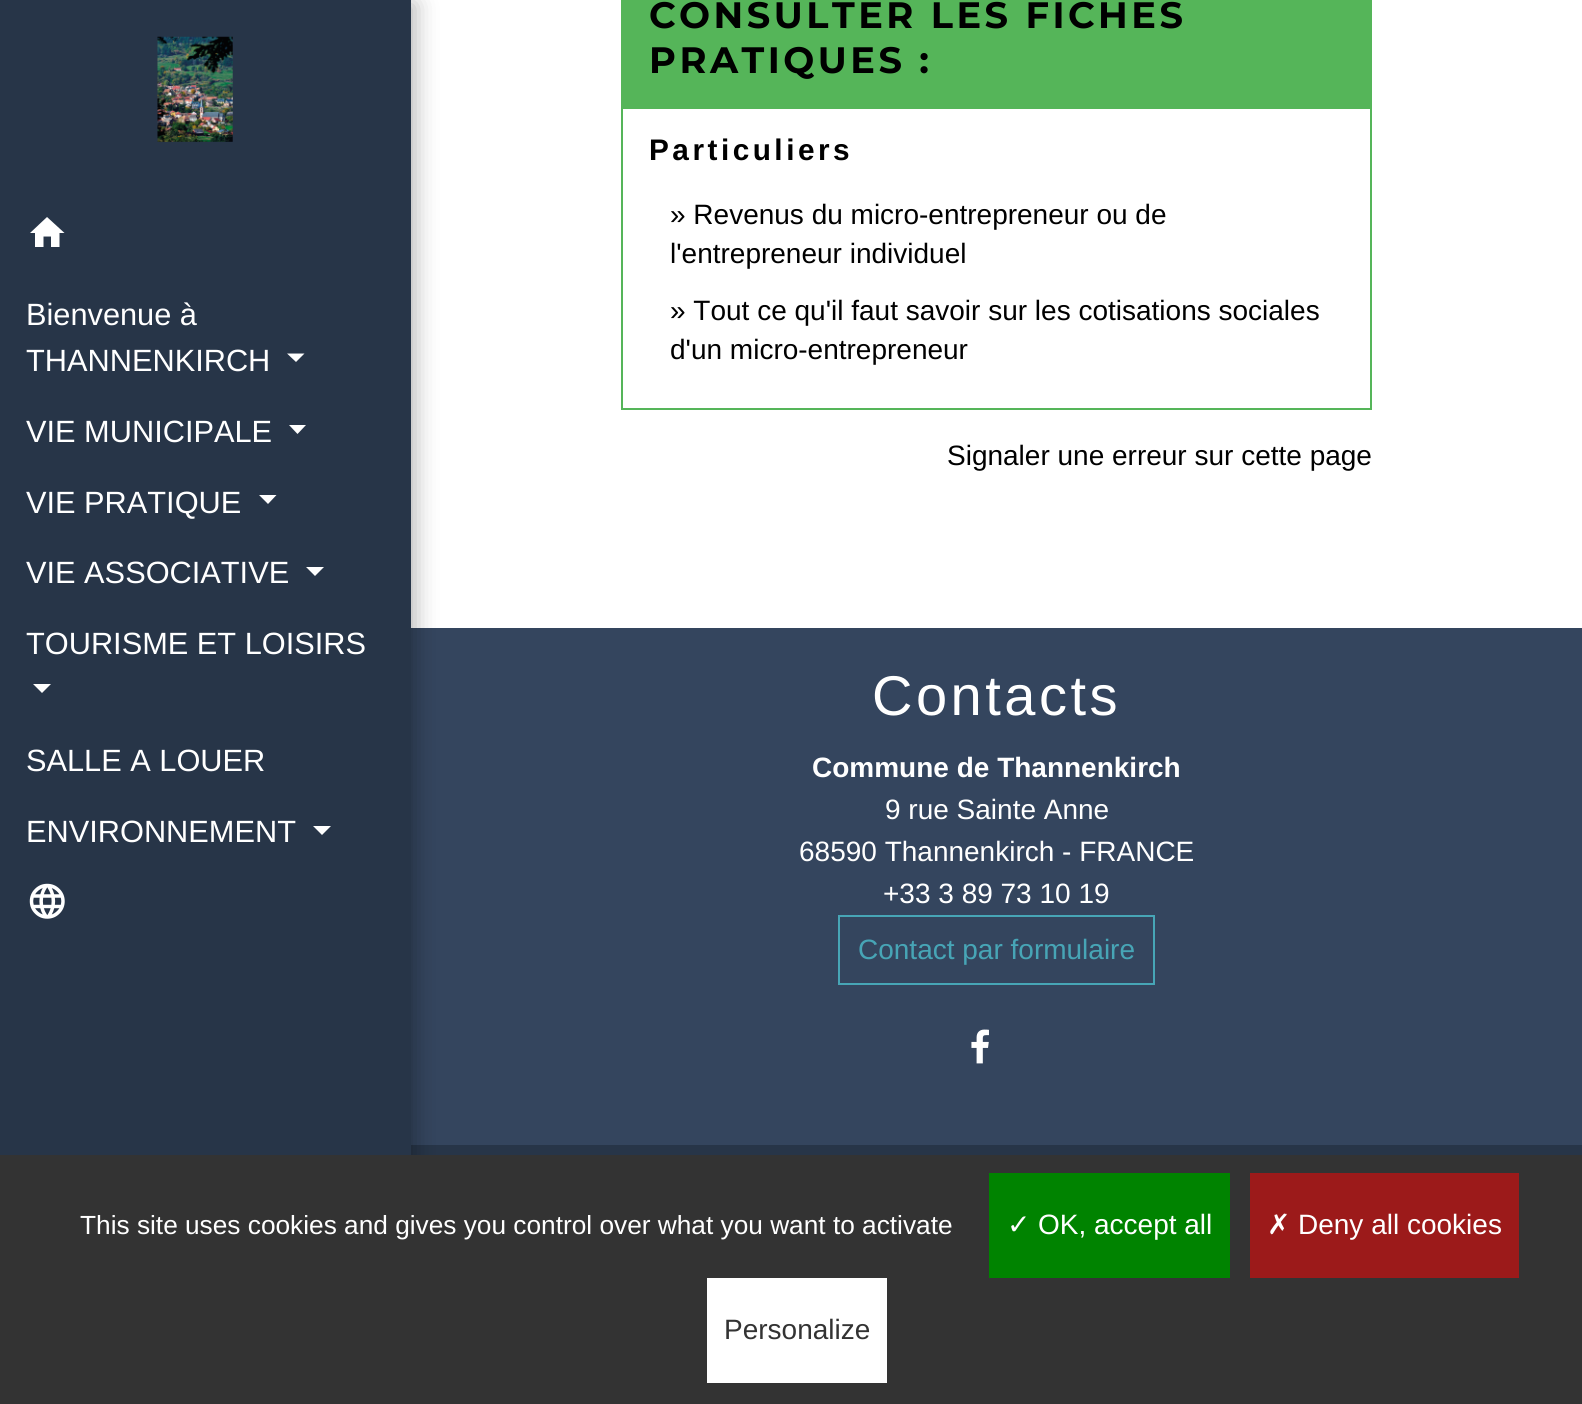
import math
import cairo

surface = cairo.ImageSurface(cairo.Format.RGB24, 1582, 1404)
ctx = cairo.Context(surface)
options = cairo.FontOptions()
options.set_hint_metrics(cairo.HintMetrics.OFF)
options.set_hint_style(cairo.HintStyle.NONE)
ctx.set_font_options(options)
ctx.set_miter_limit(4)


def ink(r, g, b):
    ctx.set_source_rgb(r / 255, g / 255, b / 255)


def write(x, y, s, family, size, color, bold=False, italic=False):
    ctx.select_font_face(family, cairo.FontSlant.ITALIC if italic else cairo.FontSlant.NORMAL, cairo.FontWeight.BOLD if bold else cairo.FontWeight.NORMAL)
    ctx.set_font_size(size)
    ink(*color)
    ctx.move_to(x, y)
    ctx.show_text(s)


def write_spaced(x, y, s, letter, word):
    ctx.move_to(x, y)
    for ch in s:
        ctx.show_text(ch)
        ctx.rel_move_to(letter + word * (ch == ' '), 0)


def block(x, y, w, h, *color):
    ink(*color)
    ctx.rectangle(x, y, w, h)
    ctx.fill()


def round_path(x, y, w, h, r):
    ctx.new_sub_path()
    for i, (u, v) in enumerate([(x + w - r, y + h - r), (x + r, y + h - r), (x + r, y + r), (x + w - r, y + r)]):
        ctx.arc(u, v, r, i * math.pi / 2, (i + 1) * math.pi / 2)
    ctx.close_path()


def blur_box(x, y, w, h, r, blur, alpha):
    ctx.push_group_with_content(cairo.Content.ALPHA)
    ctx.set_operator(cairo.Operator.SOURCE)
    for i in range(15, -16, -2):
        e = blur * i / 6
        if min(w, h) + 2 * e > 0:
            ctx.set_source_rgba(0, 0, 0, alpha * math.erfc((i - 1) / 8.5) / 2)
            round_path(x - e, y - e, w + 2 * e, h + 2 * e, max(0, min(r + e + blur * .6, min(w, h) / 2 + e)))
            ctx.fill()
    ctx.mask(ctx.pop_group())


def paste(path, x, y, w, h):
    ctx.save()
    ctx.set_source_surface(cairo.ImageSurface.create_from_png(path), x, y)
    ctx.rectangle(x, y, w, h)
    ctx.fill()
    ctx.restore()


s1 = dict(family="Liberation Sans", size=28, color=(0, 0, 0))
s2 = dict(family="Liberation Sans", size=30.75, color=(255, 255, 255))
s3 = dict(family="Liberation Sans", size=28, color=(255, 255, 255), bold=True)
s4 = dict(family="Liberation Sans", size=28, color=(255, 255, 255))
s5 = dict(family="Liberation Sans", size=28, color=(71, 165, 182))
s6 = dict(family="Liberation Sans", size=26.25, color=(255, 255, 255))
s7 = dict(family="DejaVu Sans", size=28, color=(255, 255, 255))
s8 = dict(family="Liberation Sans", size=28, color=(51, 51, 51))

ink(255, 255, 255)
ctx.paint()
ctx.rectangle(622, -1, 749, 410)
ink(85, 181, 89)
ctx.stroke()
block(623, 0, 747, 109, 85, 181, 89)
ctx.select_font_face("Montserrat", cairo.FontSlant.NORMAL, cairo.FontWeight.BOLD)
ctx.set_font_size(36.75)
ink(0, 0, 0)
write_spaced(649, 28, "CONSULTER LES FICHES", 3.5, 0)
write_spaced(649, 73, "PRATIQUES :", 3.5, 0)
ctx.select_font_face("Liberation Sans", cairo.FontSlant.NORMAL, cairo.FontWeight.BOLD)
ctx.set_font_size(29.75)
write_spaced(649, 160, "Particuliers", 3.5, 0)
write(670, 224, "» Revenus du micro-entrepreneur ou de", **s1)
write(670, 263, "l'entrepreneur individuel", **s1)
write(670, 320, "» Tout ce qu'il faut savoir sur les cotisations sociales", **s1)
write(670, 359, "d'un micro-entrepreneur", **s1)
write(947, 465, "Signaler une erreur sur cette page", **s1)
block(411, 628, 1171, 517, 52, 69, 94)
block(411, 1145, 1171, 10, 39, 53, 72)
ink(0, 0, 0)
blur_box(4, 4, 411, 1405, 0, 11.5, 0.3)
block(0, 0, 411, 1155, 39, 53, 72)
paste("pic1.png", 157, 36, 76, 106)
ink(255, 255, 255)
ctx.new_path()
ctx.move_to(43.5, 247)
ctx.line_to(35, 247)
ctx.line_to(35, 233)
ctx.line_to(30, 233)
ctx.line_to(47, 217)
ctx.line_to(64.5, 233)
ctx.line_to(59.5, 233)
ctx.line_to(59.5, 247)
ctx.line_to(51, 247)
ctx.line_to(51, 236.5)
ctx.line_to(43.5, 236.5)
ctx.close_path()
ctx.fill()
write(26, 325, "Bienvenue à", **s2)
write(26, 371, "THANNENKIRCH", **s2)
ctx.new_path()
ctx.move_to(287, 353.5)
ctx.line_to(304.5, 353.5)
ctx.line_to(296, 362)
ctx.close_path()
ctx.fill()
write(26, 442, "VIE MUNICIPALE", **s2)
ctx.new_path()
ctx.move_to(289, 425)
ctx.line_to(306, 425)
ctx.line_to(297.5, 434)
ctx.close_path()
ctx.fill()
write(26, 513, "VIE PRATIQUE", **s2)
ctx.new_path()
ctx.move_to(259, 495)
ctx.line_to(276.5, 495)
ctx.line_to(268, 504)
ctx.close_path()
ctx.fill()
write(26, 583, "VIE ASSOCIATIVE", **s2)
ctx.new_path()
ctx.move_to(306, 567)
ctx.line_to(324, 567)
ctx.line_to(315, 576)
ctx.close_path()
ctx.fill()
write(26, 654, "TOURISME ET LOISIRS", **s2)
ctx.new_path()
ctx.move_to(33, 684)
ctx.line_to(51, 684)
ctx.line_to(42, 693)
ctx.close_path()
ctx.fill()
write(26, 771, "SALLE A LOUER", **s2)
write(26, 842, "ENVIRONNEMENT", **s2)
ctx.new_path()
ctx.move_to(313, 826)
ctx.line_to(331, 826)
ctx.line_to(322, 835)
ctx.close_path()
ctx.fill()
paste("pic2.png", 29, 883, 36, 36)
ctx.set_font_size(56)
write_spaced(872, 715, "Contacts", 3.5, 0)
write(812, 777, "Commune de Thannenkirch", **s3)
write(885, 819, "9 rue Sainte Anne", **s4)
write(799, 861, "68590 Thannenkirch - FRANCE", **s4)
write(883, 903, "+33 3 89 73 10 19", **s4)
ctx.rectangle(839, 916, 315, 68)
ink(71, 165, 182)
ctx.stroke()
write(858, 959, "Contact par formulaire", **s5)
paste("pic3.png", 971, 1029, 18, 35)
block(0, 1155, 1582, 249, 51, 51, 51)
write(80, 1234, "This site uses cookies and gives you control over what you want to activate", **s6)
block(989, 1173, 241, 105, 0, 131, 0)
write(1007, 1234, "✓", **s7)
write(1038, 1234, "OK, accept all", **s4)
block(1250, 1173, 269, 105, 156, 26, 26)
write(1267, 1234, "✗", **s7)
write(1298, 1234, "Deny all cookies", **s4)
block(707, 1278, 180, 105, 255, 255, 255)
write(724, 1339, "Personalize", **s8)
surface.write_to_png("screenshot.png")
